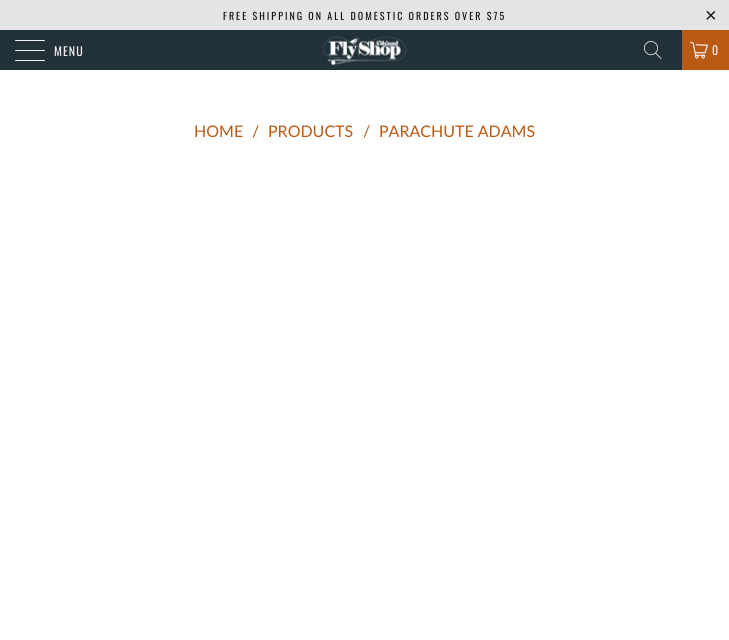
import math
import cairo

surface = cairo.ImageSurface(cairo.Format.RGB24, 729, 640)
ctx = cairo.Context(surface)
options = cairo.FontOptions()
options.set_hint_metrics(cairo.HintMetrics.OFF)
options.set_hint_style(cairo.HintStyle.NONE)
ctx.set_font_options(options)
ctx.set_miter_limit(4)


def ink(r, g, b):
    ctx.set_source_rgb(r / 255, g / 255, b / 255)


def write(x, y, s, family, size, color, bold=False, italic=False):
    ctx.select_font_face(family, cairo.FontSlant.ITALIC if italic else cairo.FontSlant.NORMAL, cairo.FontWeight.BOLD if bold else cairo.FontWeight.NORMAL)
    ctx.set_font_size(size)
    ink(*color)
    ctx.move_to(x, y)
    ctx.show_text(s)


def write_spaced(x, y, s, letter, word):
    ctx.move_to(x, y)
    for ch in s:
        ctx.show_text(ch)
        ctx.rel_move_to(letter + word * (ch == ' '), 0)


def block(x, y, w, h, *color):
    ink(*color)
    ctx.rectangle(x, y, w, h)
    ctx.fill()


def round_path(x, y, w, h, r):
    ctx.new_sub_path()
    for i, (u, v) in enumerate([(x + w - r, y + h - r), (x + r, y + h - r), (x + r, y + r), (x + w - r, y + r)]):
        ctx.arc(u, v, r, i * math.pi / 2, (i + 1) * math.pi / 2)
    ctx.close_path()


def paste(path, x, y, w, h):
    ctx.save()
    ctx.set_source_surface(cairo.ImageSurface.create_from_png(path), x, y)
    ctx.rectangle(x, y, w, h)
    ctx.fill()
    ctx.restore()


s1 = dict(family="Lato", size=16, color=(186, 89, 20))

ink(255, 255, 255)
ctx.paint()
block(0, 0, 729, 30, 228, 228, 228)
ctx.select_font_face("Oswald")
ctx.set_font_size(10)
ink(21, 21, 21)
write_spaced(223, 20, "FREE SHIPPING ON ALL DOMESTIC ORDERS OVER $75", 2, 0)
ctx.select_font_face("Liberation Sans")
ctx.set_font_size(20)
write_spaced(705, 22, "×", 2, 0)
block(0, 30, 682, 40, 34, 49, 56)
ink(244, 244, 244)
round_path(15, 40, 30, 1, 0.5)
ctx.fill()
round_path(15, 50, 30, 1, 0.5)
ctx.fill()
round_path(15, 60, 30, 1, 0.5)
ctx.fill()
ctx.select_font_face("Oswald")
ctx.set_font_size(12)
write_spaced(54, 56, "MENU", 1, 0)
paste("pic1.png", 323, 36, 84, 29)
paste("pic2.png", 644, 41, 18, 18)
block(682, 30, 47, 40, 186, 89, 20)
paste("pic3.png", 690, 41, 18, 18)
ink(244, 244, 244)
write_spaced(712, 55, "0", 1, 0)
write(194, 137, "HOME", **s1)
write(252, 137, "/", **s1)
write(268, 137, "PRODUCTS", **s1)
write(363, 137, "/", **s1)
write(379, 137, "PARACHUTE ADAMS", **s1)
surface.write_to_png("screenshot.png")
